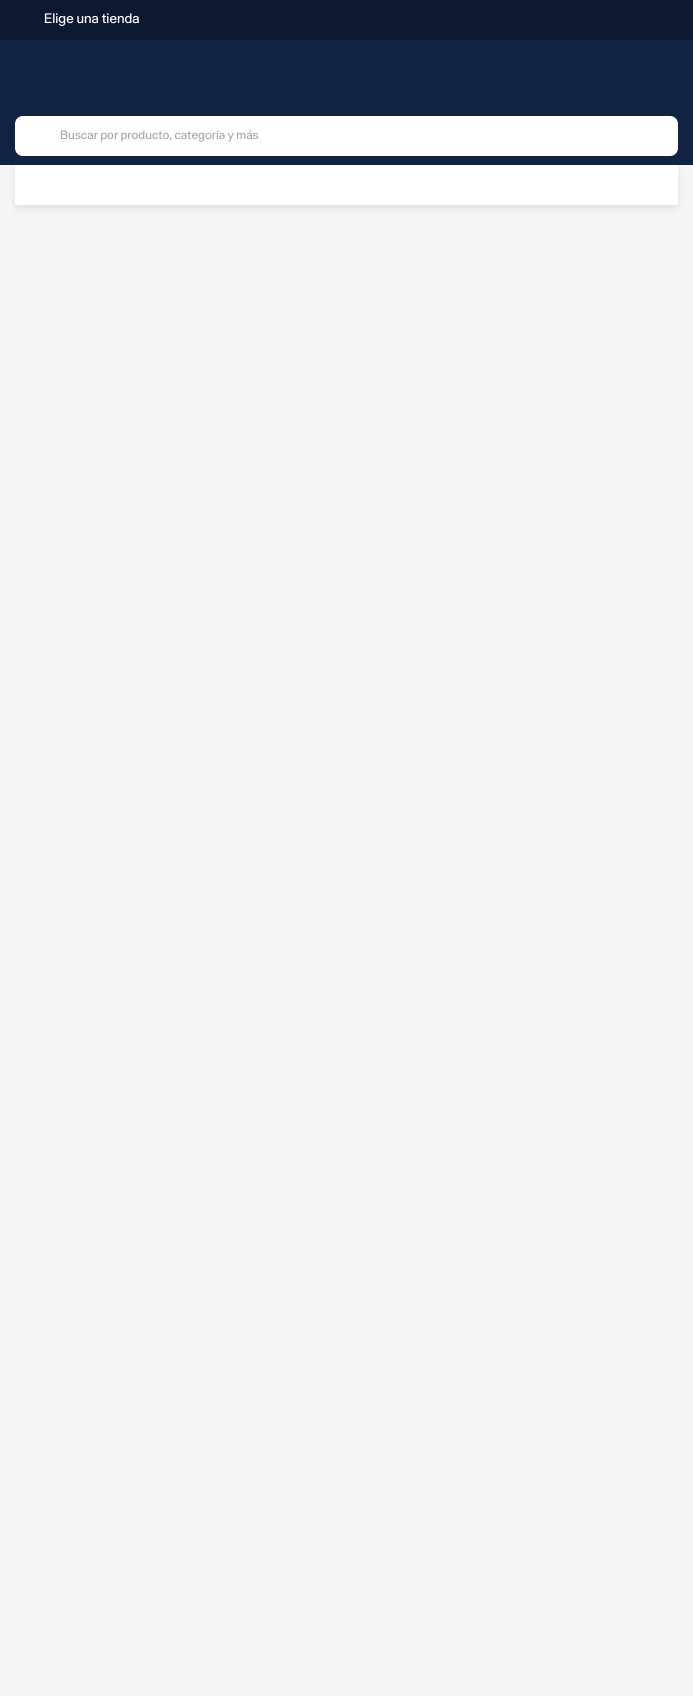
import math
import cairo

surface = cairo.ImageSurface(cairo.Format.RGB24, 693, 1696)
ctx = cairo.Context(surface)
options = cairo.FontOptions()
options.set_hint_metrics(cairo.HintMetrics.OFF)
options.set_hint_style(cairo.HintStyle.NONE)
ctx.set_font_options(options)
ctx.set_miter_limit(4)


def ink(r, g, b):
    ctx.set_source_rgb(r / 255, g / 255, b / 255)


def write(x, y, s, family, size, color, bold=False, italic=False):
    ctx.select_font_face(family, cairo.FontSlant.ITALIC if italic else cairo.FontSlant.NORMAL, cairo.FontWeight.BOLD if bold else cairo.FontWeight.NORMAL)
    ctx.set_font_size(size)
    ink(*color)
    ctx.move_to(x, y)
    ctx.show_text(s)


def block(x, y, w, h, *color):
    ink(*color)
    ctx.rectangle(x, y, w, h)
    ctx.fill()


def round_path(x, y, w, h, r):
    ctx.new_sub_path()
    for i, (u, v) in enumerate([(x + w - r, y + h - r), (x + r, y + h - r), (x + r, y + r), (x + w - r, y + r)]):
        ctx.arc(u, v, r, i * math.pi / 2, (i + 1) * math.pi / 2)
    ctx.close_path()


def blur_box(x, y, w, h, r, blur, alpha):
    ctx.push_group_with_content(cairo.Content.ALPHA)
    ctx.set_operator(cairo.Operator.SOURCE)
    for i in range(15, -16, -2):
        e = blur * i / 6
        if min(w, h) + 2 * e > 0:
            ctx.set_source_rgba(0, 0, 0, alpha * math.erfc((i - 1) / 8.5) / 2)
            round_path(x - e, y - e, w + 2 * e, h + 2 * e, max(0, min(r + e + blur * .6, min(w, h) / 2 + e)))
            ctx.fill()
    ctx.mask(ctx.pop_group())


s1 = dict(family="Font", size=13.5, color=(255, 255, 255))
s2 = dict(family="Font", size=12, color=(173, 168, 168))

ink(245, 245, 245)
ctx.paint()
ink(204, 204, 204)
blur_box(15, 169, 663, 40, 4, 3.5, 0.5)
block(0, 40, 693, 125, 18, 35, 68)
block(0, 0, 693, 40, 13, 25, 48)
write(44, 23, "Elige una tienda", **s1)
ctx.new_path()
ctx.move_to(653, 116)
ctx.line_to(670, 116)
ctx.curve_to(674.5, 116, 678, 119.5, 678, 124)
ctx.line_to(678, 148)
ctx.curve_to(678, 152.5, 674.5, 156, 670, 156)
ctx.line_to(653, 156)
ctx.close_path()
ctx.fill()
ctx.new_path()
ctx.move_to(23, 116)
ctx.line_to(654, 116)
ctx.line_to(654, 156)
ctx.line_to(23, 156)
ctx.curve_to(18.5, 156, 15, 152.5, 15, 148)
ctx.line_to(15, 124)
ctx.curve_to(15, 119.5, 18.5, 116, 23, 116)
ctx.close_path()
ctx.fill()
write(60, 139, "Buscar por producto, categoría y más", **s2)
block(15, 165, 663, 40, 255, 255, 255)
surface.write_to_png("screenshot.png")
